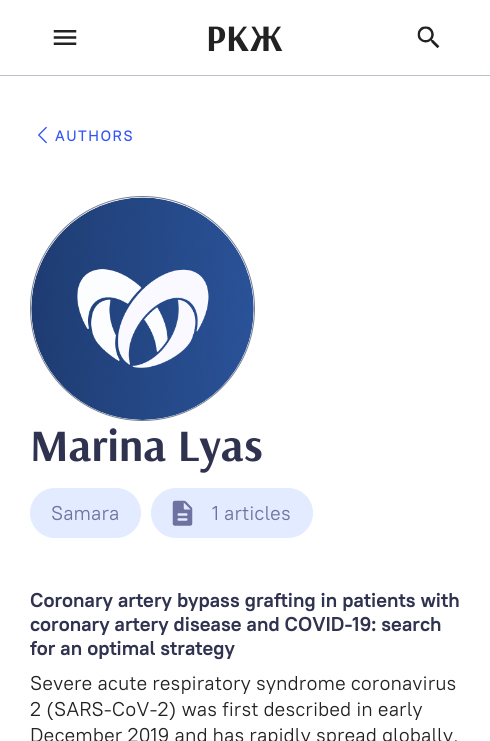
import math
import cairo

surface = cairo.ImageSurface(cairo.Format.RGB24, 490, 741)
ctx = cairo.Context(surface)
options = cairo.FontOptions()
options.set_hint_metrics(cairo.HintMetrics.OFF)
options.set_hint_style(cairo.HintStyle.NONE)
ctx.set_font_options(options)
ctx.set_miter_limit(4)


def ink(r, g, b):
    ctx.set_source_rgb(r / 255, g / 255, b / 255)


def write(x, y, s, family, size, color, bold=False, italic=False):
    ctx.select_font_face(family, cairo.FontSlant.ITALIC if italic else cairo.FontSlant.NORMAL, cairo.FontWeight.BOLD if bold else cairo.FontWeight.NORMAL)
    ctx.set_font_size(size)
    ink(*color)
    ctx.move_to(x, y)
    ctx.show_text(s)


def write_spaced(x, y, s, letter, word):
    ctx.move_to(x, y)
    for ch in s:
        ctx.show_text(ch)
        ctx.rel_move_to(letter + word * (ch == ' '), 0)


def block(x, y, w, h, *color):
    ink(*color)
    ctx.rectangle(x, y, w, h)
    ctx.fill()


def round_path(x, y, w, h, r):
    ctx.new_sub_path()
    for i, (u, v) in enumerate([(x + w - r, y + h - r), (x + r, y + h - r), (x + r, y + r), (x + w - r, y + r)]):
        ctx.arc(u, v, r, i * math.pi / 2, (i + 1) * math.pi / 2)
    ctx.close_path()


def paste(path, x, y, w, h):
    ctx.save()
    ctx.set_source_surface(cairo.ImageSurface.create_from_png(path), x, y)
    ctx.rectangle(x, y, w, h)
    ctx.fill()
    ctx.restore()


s1 = dict(family="Arsenal", size=37.5, color=(34, 34, 34), bold=True)
s2 = dict(family="Arsenal", size=45, color=(48, 51, 79), bold=True)
s3 = dict(family="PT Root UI", size=20, color=(109, 114, 161))
s4 = dict(family="PT Root UI", size=20, color=(48, 51, 79), bold=True)
s5 = dict(family="PT Root UI", size=20, color=(34, 34, 34))

ink(255, 255, 255)
ctx.paint()
block(0, 75, 490, 1, 188, 192, 200)
paste("pic1.png", 53, 30, 24, 15)
write(206, 51, "РКЖ", **s1)
paste("pic2.png", 417, 26, 23, 23)
paste("pic3.png", 38, 126, 9, 18)
ctx.select_font_face("PT Root UI Medium")
ctx.set_font_size(15)
ink(51, 84, 244)
write_spaced(55, 141, "AUTHORS", 1.5, 0)
ctx.new_path()
ctx.arc(142.5, 308.5, 112, 0, 2 * math.pi)
ink(118, 128, 149)
ctx.set_line_width(1)
ctx.stroke()
paste("pic4.png", 31, 197, 223, 223)
write(30, 461, "Marina Lyas", **s2)
ink(226, 235, 255)
round_path(30.5, 488.5, 110, 49, 24.5)
ctx.fill_preserve()
ctx.stroke()
write(51, 520, "Samara", **s3)
ink(226, 235, 255)
round_path(151.5, 488.5, 161, 49, 24.5)
ctx.fill_preserve()
ctx.stroke()
paste("pic5.png", 172, 500, 21, 26)
write(212, 520, "1 articles", **s3)
write(30, 607, "Coronary artery bypass grafting in patients with", **s4)
write(30, 631, "coronary artery disease and COVID-19: search", **s4)
write(30, 655, "for an optimal strategy", **s4)
write(30, 690, "Severe acute respiratory syndrome coronavirus", **s5)
write(30, 716, "2 (SARS-CoV-2) was first described in early", **s5)
write(30, 742, "December 2019 and has rapidly spread globally,", **s5)
surface.write_to_png("screenshot.png")
